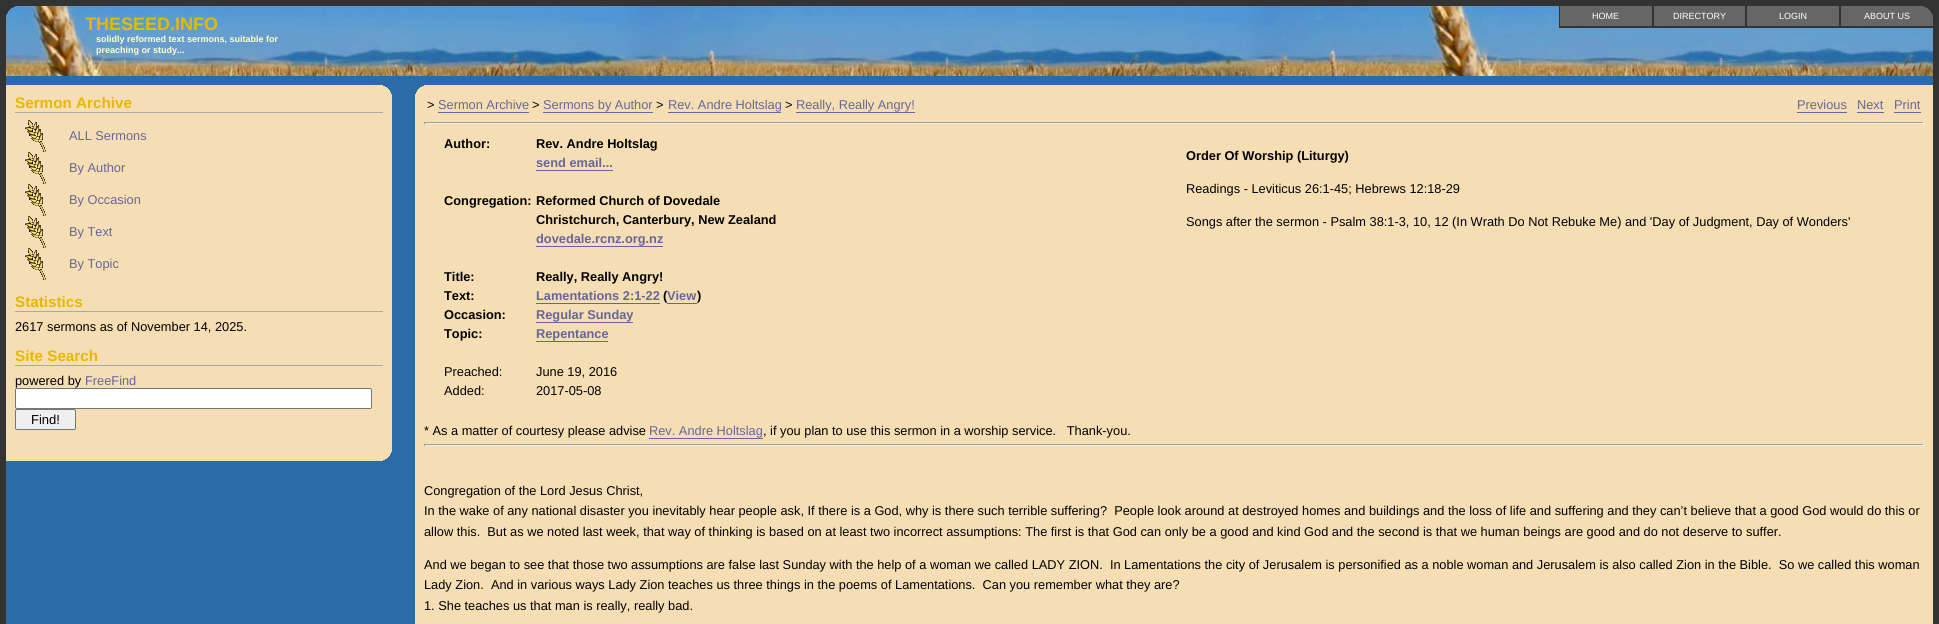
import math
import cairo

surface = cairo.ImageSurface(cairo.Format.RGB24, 1939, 624)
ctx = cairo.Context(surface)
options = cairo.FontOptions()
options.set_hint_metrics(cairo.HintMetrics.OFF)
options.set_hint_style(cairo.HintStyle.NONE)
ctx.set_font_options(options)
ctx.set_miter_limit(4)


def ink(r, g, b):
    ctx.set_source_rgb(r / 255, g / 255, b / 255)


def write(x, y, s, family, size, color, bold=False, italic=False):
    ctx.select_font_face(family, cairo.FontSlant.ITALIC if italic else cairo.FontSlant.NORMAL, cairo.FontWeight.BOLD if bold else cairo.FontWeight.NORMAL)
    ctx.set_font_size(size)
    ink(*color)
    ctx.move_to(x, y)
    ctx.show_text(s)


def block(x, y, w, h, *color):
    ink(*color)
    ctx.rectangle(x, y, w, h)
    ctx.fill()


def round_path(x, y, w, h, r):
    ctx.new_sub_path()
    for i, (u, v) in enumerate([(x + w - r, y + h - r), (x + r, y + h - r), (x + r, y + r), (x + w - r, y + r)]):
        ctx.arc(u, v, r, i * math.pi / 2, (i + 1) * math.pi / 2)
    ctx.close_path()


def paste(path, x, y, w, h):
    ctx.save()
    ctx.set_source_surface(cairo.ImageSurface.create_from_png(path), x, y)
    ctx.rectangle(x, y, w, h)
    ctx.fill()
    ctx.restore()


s1 = dict(family="Liberation Sans", size=9, color=(255, 255, 255))
s2 = dict(family="Liberation Sans", size=18, color=(230, 184, 0), bold=True)
s3 = dict(family="Liberation Sans", size=9, color=(255, 255, 204), bold=True)
s4 = dict(family="Liberation Sans", size=15.25, color=(230, 184, 0), bold=True)
s5 = dict(family="Liberation Sans", size=12.8, color=(102, 102, 153))
s6 = dict(family="Liberation Sans", size=12.8, color=(0, 0, 0))
s7 = dict(family="Liberation Sans", size=13, color=(0, 0, 0))
s8 = dict(family="Liberation Sans", size=12.8, color=(0, 0, 0), bold=True)
s9 = dict(family="Liberation Sans", size=12.8, color=(102, 102, 153), bold=True)

ink(51, 51, 51)
ctx.paint()
paste("pic1.png", 6, 6, 1927, 70)
paste("pic2.png", 6, 6, 9, 9)
block(1560, 6, 92, 20, 102, 102, 102)
block(1840, 26, 93, 2, 51, 51, 51)
block(1839, 6, 2, 22, 51, 51, 51)
block(1746, 26, 94, 2, 51, 51, 51)
block(1745, 6, 2, 22, 51, 51, 51)
block(1653, 26, 93, 2, 51, 51, 51)
block(1652, 6, 2, 22, 51, 51, 51)
block(1559, 26, 94, 2, 51, 51, 51)
block(1559, 6, 1, 22, 51, 51, 51)
write(1592, 19, "HOME", **s1)
block(1654, 6, 91, 20, 102, 102, 102)
write(1673, 19, "DIRECTORY", **s1)
block(1747, 6, 92, 20, 102, 102, 102)
write(1779, 19, "LOGIN", **s1)
block(1841, 6, 92, 20, 102, 102, 102)
paste("pic3.png", 1924, 6, 9, 9)
write(1864, 19, "ABOUT US", **s1)
write(85, 30, "THESEED.INFO", **s2)
write(96, 42, "solidly reformed text sermons, suitable for", **s3)
write(96, 53, "preaching or study...", **s3)
block(6, 76, 1927, 548, 43, 107, 168)
block(6, 85, 386, 376, 245, 222, 179)
paste("pic4.png", 383, 85, 9, 9)
block(15, 112, 368, 1, 170, 170, 170)
write(15, 108, "Sermon Archive", **s4)
paste("pic5.png", 25, 120, 21, 32)
write(69, 140, "ALL Sermons", **s5)
paste("pic5.png", 25, 152, 21, 32)
write(69, 172, "By Author", **s5)
paste("pic5.png", 25, 184, 21, 32)
write(69, 204, "By Occasion", **s5)
paste("pic5.png", 25, 216, 21, 32)
write(69, 236, "By Text", **s5)
paste("pic5.png", 25, 248, 21, 32)
write(69, 268, "By Topic", **s5)
block(15, 311, 368, 1, 170, 170, 170)
write(15, 307, "Statistics", **s4)
write(15, 331, "2617 sermons as of November 14, 2025.", **s6)
block(15, 365, 368, 1, 170, 170, 170)
write(15, 361, "Site Search", **s4)
write(15, 385, "powered by", **s6)
write(85, 385, "FreeFind", **s5)
ink(255, 255, 255)
round_path(15.5, 388.5, 356, 20, 1.5)
ctx.fill_preserve()
ink(118, 118, 118)
ctx.set_line_width(1)
ctx.stroke()
ink(239, 239, 239)
round_path(15.5, 409.5, 60, 20, 1.5)
ctx.fill_preserve()
ink(118, 118, 118)
ctx.stroke()
write(31, 424, "Find!", **s7)
paste("pic6.png", 383, 452, 9, 9)
block(415, 85, 1518, 539, 245, 222, 179)
paste("pic7.png", 415, 85, 9, 9)
write(427, 109, ">", **s6)
write(438, 109, "Sermon Archive", **s5)
block(438, 112, 91, 1, 102, 102, 153)
write(532, 109, ">", **s6)
write(543, 109, "Sermons by Author", **s5)
block(543, 112, 110, 1, 102, 102, 153)
write(656, 109, ">", **s6)
write(668, 109, "Rev. Andre Holtslag", **s5)
block(668, 112, 113, 1, 102, 102, 153)
write(785, 109, ">", **s6)
write(796, 109, "Really, Really Angry!", **s5)
block(796, 112, 119, 1, 102, 102, 153)
write(1797, 109, "Previous", **s5)
block(1797, 112, 50, 1, 102, 102, 153)
write(1857, 109, "Next", **s5)
block(1857, 112, 27, 1, 102, 102, 153)
write(1894, 109, "Print", **s5)
block(1894, 112, 27, 1, 102, 102, 153)
block(424, 122, 1500, 1, 159, 159, 159)
block(1923, 122, 1, 2, 238, 238, 238)
block(424, 123, 1500, 1, 238, 238, 238)
block(424, 122, 1, 2, 159, 159, 159)
write(444, 148, "Author:", **s8)
write(536, 148, "Rev. Andre Holtslag", **s8)
write(536, 167, "send email...", **s9)
block(536, 170, 77, 1, 102, 102, 153)
write(444, 205, "Congregation:", **s8)
write(536, 205, "Reformed Church of Dovedale", **s8)
write(536, 224, "Christchurch, Canterbury, New Zealand", **s8)
write(536, 243, "dovedale.rcnz.org.nz", **s9)
block(536, 246, 127, 1, 102, 102, 153)
write(444, 281, "Title:", **s8)
write(536, 281, "Really, Really Angry!", **s8)
write(444, 300, "Text:", **s8)
write(536, 300, "Lamentations 2:1-22", **s9)
block(536, 303, 124, 1, 102, 102, 153)
write(663, 300, "(", **s8)
block(667, 303, 30, 1, 102, 102, 153)
write(667, 300, "View", **s9)
write(697, 300, ")", **s8)
write(444, 319, "Occasion:", **s8)
write(536, 319, "Regular Sunday", **s9)
block(536, 322, 97, 1, 102, 102, 153)
write(444, 338, "Topic:", **s8)
write(536, 338, "Repentance", **s9)
block(536, 341, 72, 1, 102, 102, 153)
write(444, 376, "Preached:", **s6)
write(536, 376, "June 19, 2016", **s6)
write(444, 395, "Added:", **s6)
write(536, 395, "2017-05-08", **s6)
write(1186, 160, "Order Of Worship (Liturgy)", **s8)
write(1186, 193, "Readings - Leviticus 26:1-45; Hebrews 12:18-29", **s6)
write(1186, 226, "Songs after the sermon - Psalm 38:1-3, 10, 12 (In Wrath Do Not Rebuke Me) and 'Day of Judgment, Day of Wonders'", **s6)
write(424, 435, "* As a matter of courtesy please advise", **s6)
write(649, 435, "Rev. Andre Holtslag", **s5)
block(649, 438, 114, 1, 102, 102, 153)
write(763, 435, ", if you plan to use this sermon in a worship service.   Thank-you.", **s6)
block(424, 444, 1500, 1, 159, 159, 159)
block(1923, 444, 1, 2, 238, 238, 238)
block(424, 445, 1500, 1, 238, 238, 238)
block(424, 444, 1, 2, 159, 159, 159)
write(424, 495, "Congregation of the Lord Jesus Christ,", **s6)
write(424, 515, "In the wake of any national disaster you inevitably hear people ask, If there is a God, why is there such terrible suffering?  People look around at destroyed homes and buildings and the loss of life and suffering and they can’t believe that a good God would do this or", **s6)
write(424, 536, "allow this.  But as we noted last week, that way of thinking is based on at least two incorrect assumptions: The first is that God can only be a good and kind God and the second is that we human beings are good and do not deserve to suffer.", **s6)
write(424, 569, "And we began to see that those two assumptions are false last Sunday with the help of a woman we called LADY ZION.  In Lamentations the city of Jerusalem is personified as a noble woman and Jerusalem is also called Zion in the Bible.  So we called this woman", **s6)
write(424, 589, "Lady Zion.  And in various ways Lady Zion teaches us three things in the poems of Lamentations.  Can you remember what they are?", **s6)
write(424, 610, "1. She teaches us that man is really, really bad.", **s6)
surface.write_to_png("screenshot.png")
